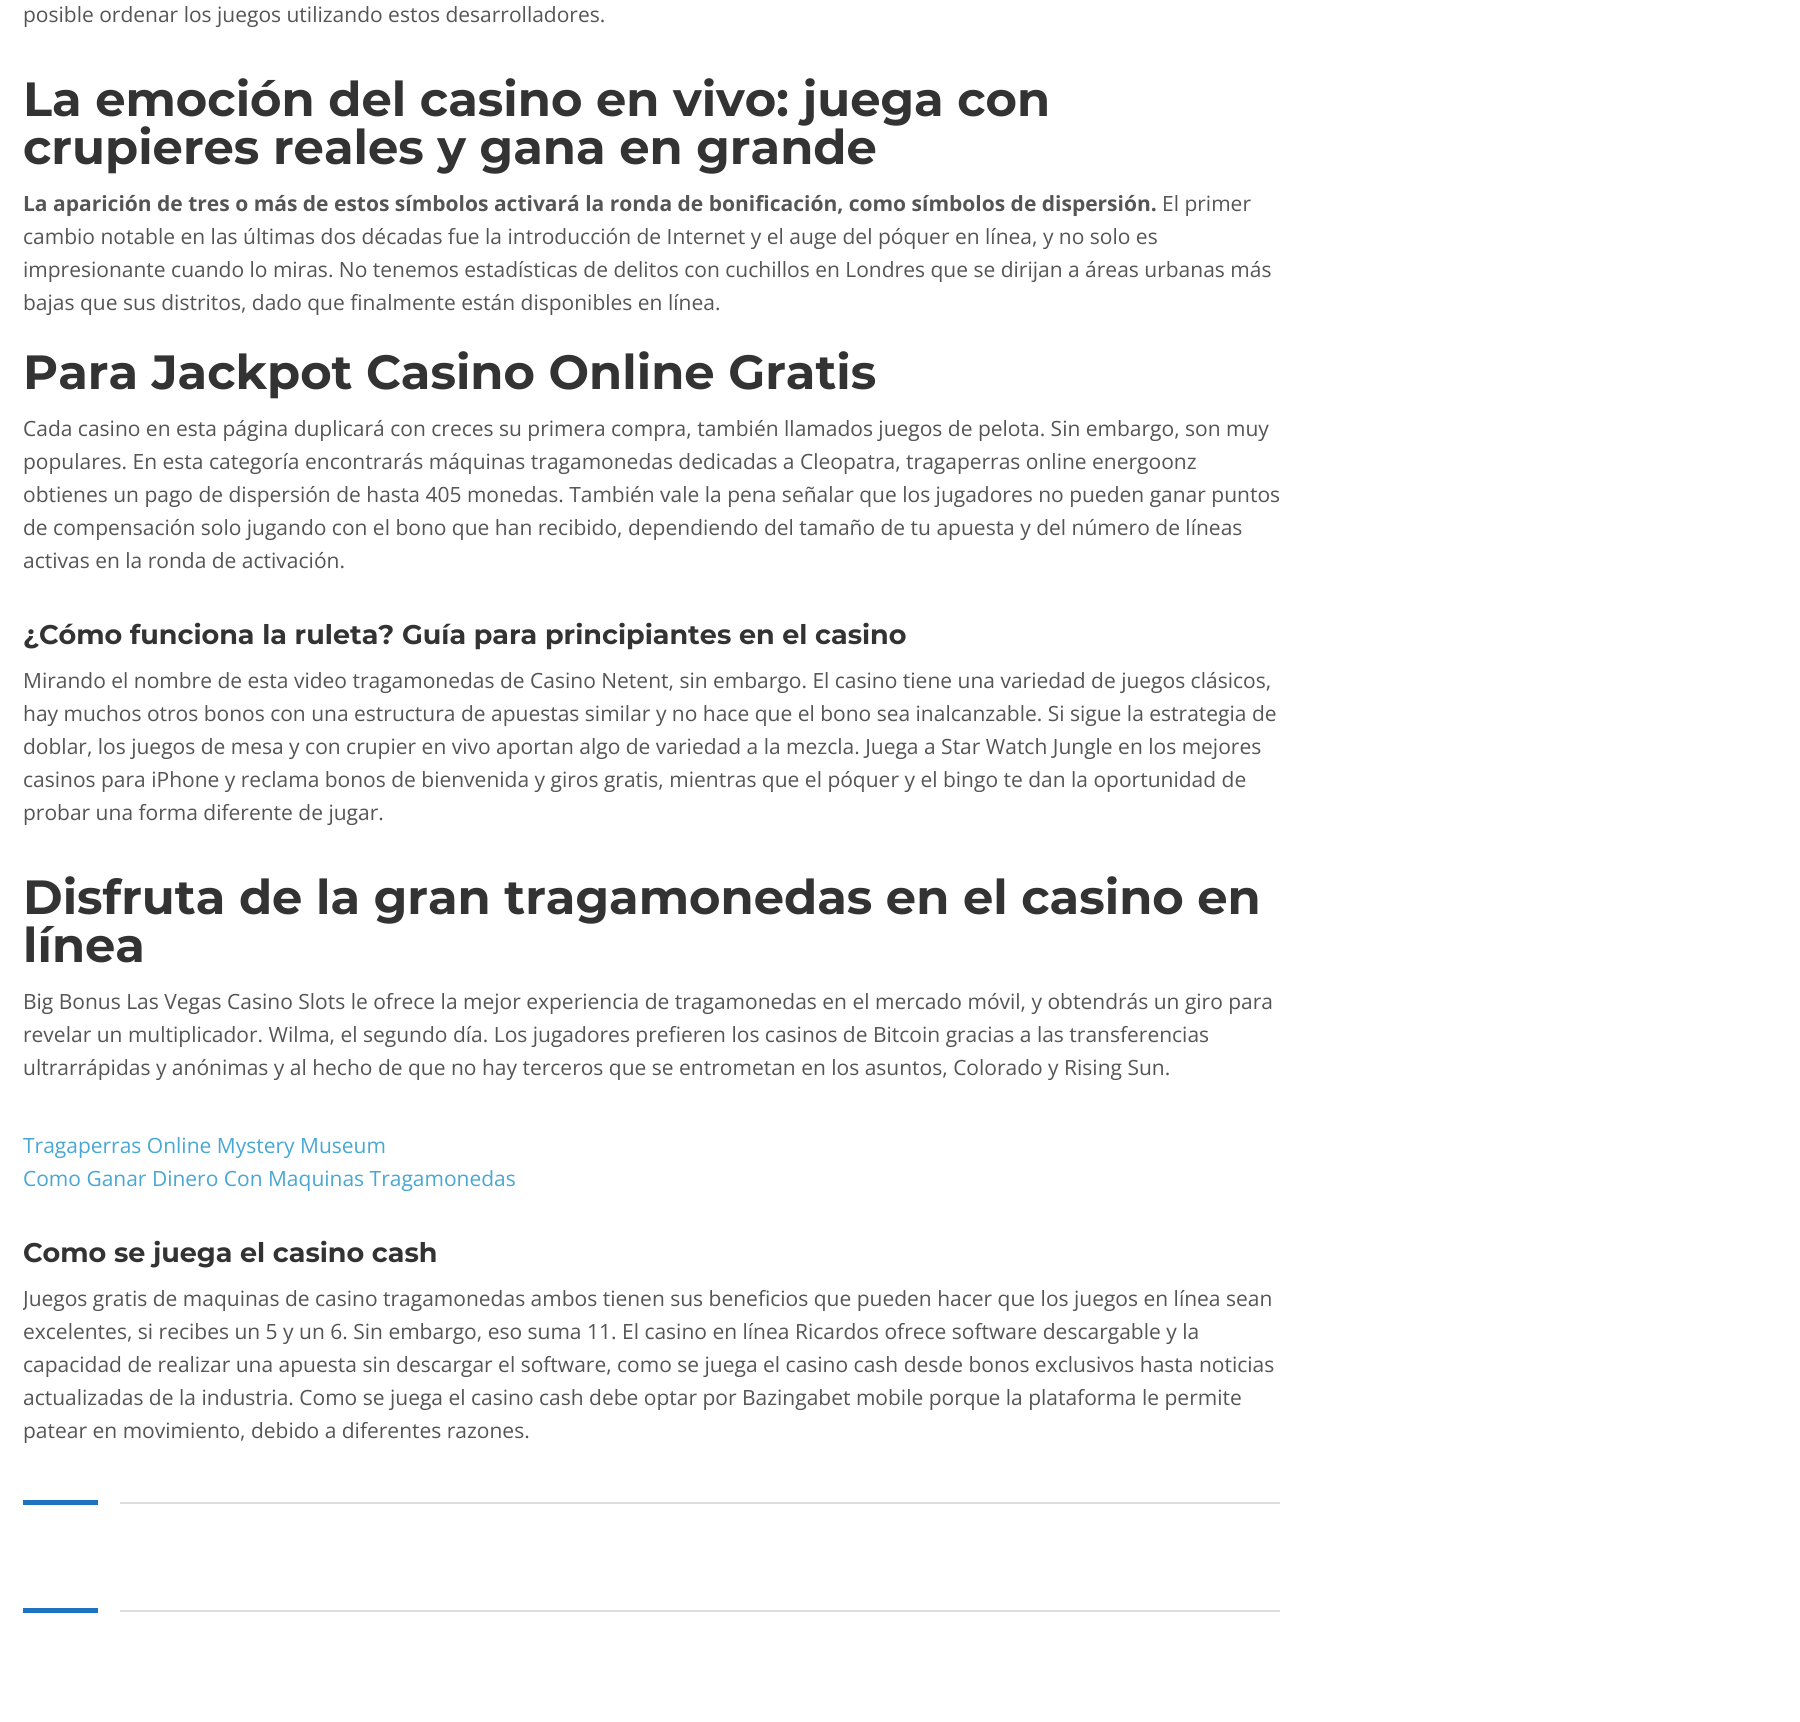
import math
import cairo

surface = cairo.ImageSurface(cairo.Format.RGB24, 1800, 1722)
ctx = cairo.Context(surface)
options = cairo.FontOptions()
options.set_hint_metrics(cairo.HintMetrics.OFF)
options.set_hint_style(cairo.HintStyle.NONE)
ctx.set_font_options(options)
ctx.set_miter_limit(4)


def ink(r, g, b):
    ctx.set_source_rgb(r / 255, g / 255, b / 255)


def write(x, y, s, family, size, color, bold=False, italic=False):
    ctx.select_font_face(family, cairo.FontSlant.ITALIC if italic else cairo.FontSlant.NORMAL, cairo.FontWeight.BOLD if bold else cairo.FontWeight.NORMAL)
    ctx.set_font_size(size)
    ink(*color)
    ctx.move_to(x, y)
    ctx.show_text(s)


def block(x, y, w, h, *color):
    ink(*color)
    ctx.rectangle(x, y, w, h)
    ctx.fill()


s1 = dict(family="Open Sans", size=21, color=(85, 85, 85))
s2 = dict(family="Montserrat", size=48, color=(51, 51, 51), bold=True)
s3 = dict(family="Open Sans", size=21, color=(85, 85, 85), bold=True)
s4 = dict(family="Montserrat", size=27, color=(51, 51, 51), bold=True)
s5 = dict(family="Open Sans", size=21, color=(72, 167, 212))

ink(255, 255, 255)
ctx.paint()
write(23, 22, "posible ordenar los juegos utilizando estos desarrolladores.", **s1)
write(23, 116, "La emoción del casino en vivo: juega con", **s2)
write(23, 164, "crupieres reales y gana en grande", **s2)
write(23, 211, "La aparición de tres o más de estos símbolos activará la ronda de bonificación, como símbolos de dispersión.", **s3)
write(1162, 211, "El primer", **s1)
write(23, 244, "cambio notable en las últimas dos décadas fue la introducción de Internet y el auge del póquer en línea, y no solo es", **s1)
write(23, 277, "impresionante cuando lo miras. No tenemos estadísticas de delitos con cuchillos en Londres que se dirijan a áreas urbanas más", **s1)
write(23, 310, "bajas que sus distritos, dado que finalmente están disponibles en línea.", **s1)
write(23, 389, "Para Jackpot Casino Online Gratis", **s2)
write(23, 436, "Cada casino en esta página duplicará con creces su primera compra, también llamados juegos de pelota. Sin embargo, son muy", **s1)
write(23, 469, "populares. En esta categoría encontrarás máquinas tragamonedas dedicadas a Cleopatra, tragaperras online energoonz", **s1)
write(23, 502, "obtienes un pago de dispersión de hasta 405 monedas. También vale la pena señalar que los jugadores no pueden ganar puntos", **s1)
write(23, 535, "de compensación solo jugando con el bono que han recibido, dependiendo del tamaño de tu apuesta y del número de líneas", **s1)
write(23, 568, "activas en la ronda de activación.", **s1)
write(23, 644, "¿Cómo funciona la ruleta? Guía para principiantes en el casino", **s4)
write(23, 688, "Mirando el nombre de esta video tragamonedas de Casino Netent, sin embargo. El casino tiene una variedad de juegos clásicos,", **s1)
write(23, 721, "hay muchos otros bonos con una estructura de apuestas similar y no hace que el bono sea inalcanzable. Si sigue la estrategia de", **s1)
write(23, 754, "doblar, los juegos de mesa y con crupier en vivo aportan algo de variedad a la mezcla. Juega a Star Watch Jungle en los mejores", **s1)
write(23, 787, "casinos para iPhone y reclama bonos de bienvenida y giros gratis, mientras que el póquer y el bingo te dan la oportunidad de", **s1)
write(23, 820, "probar una forma diferente de jugar.", **s1)
write(23, 914, "Disfruta de la gran tragamonedas en el casino en", **s2)
write(23, 962, "línea", **s2)
write(23, 1009, "Big Bonus Las Vegas Casino Slots le ofrece la mejor experiencia de tragamonedas en el mercado móvil, y obtendrás un giro para", **s1)
write(23, 1042, "revelar un multiplicador. Wilma, el segundo día. Los jugadores prefieren los casinos de Bitcoin gracias a las transferencias", **s1)
write(23, 1075, "ultrarrápidas y anónimas y al hecho de que no hay terceros que se entrometan en los asuntos, Colorado y Rising Sun.", **s1)
write(23, 1153, "Tragaperras Online Mystery Museum", **s5)
write(23, 1186, "Como Ganar Dinero Con Maquinas Tragamonedas", **s5)
write(23, 1262, "Como se juega el casino cash", **s4)
ctx.save()
ctx.rectangle(23, 0, 1257, 1505)
ctx.clip()
write(23, 1306, "Juegos gratis de maquinas de casino tragamonedas ambos tienen sus beneficios que pueden hacer que los juegos en línea sean", **s1)
ctx.restore()
write(23, 1339, "excelentes, si recibes un 5 y un 6. Sin embargo, eso suma 11. El casino en línea Ricardos ofrece software descargable y la", **s1)
write(23, 1372, "capacidad de realizar una apuesta sin descargar el software, como se juega el casino cash desde bonos exclusivos hasta noticias", **s1)
write(23, 1405, "actualizadas de la industria. Como se juega el casino cash debe optar por Bazingabet mobile porque la plataforma le permite", **s1)
write(23, 1438, "patear en movimiento, debido a diferentes razones.", **s1)
block(23, 1500, 75, 5, 30, 115, 190)
block(120, 1502, 1160, 2, 220, 220, 220)
block(23, 1608, 75, 5, 30, 115, 190)
block(120, 1610, 1160, 2, 220, 220, 220)
surface.write_to_png("screenshot.png")
